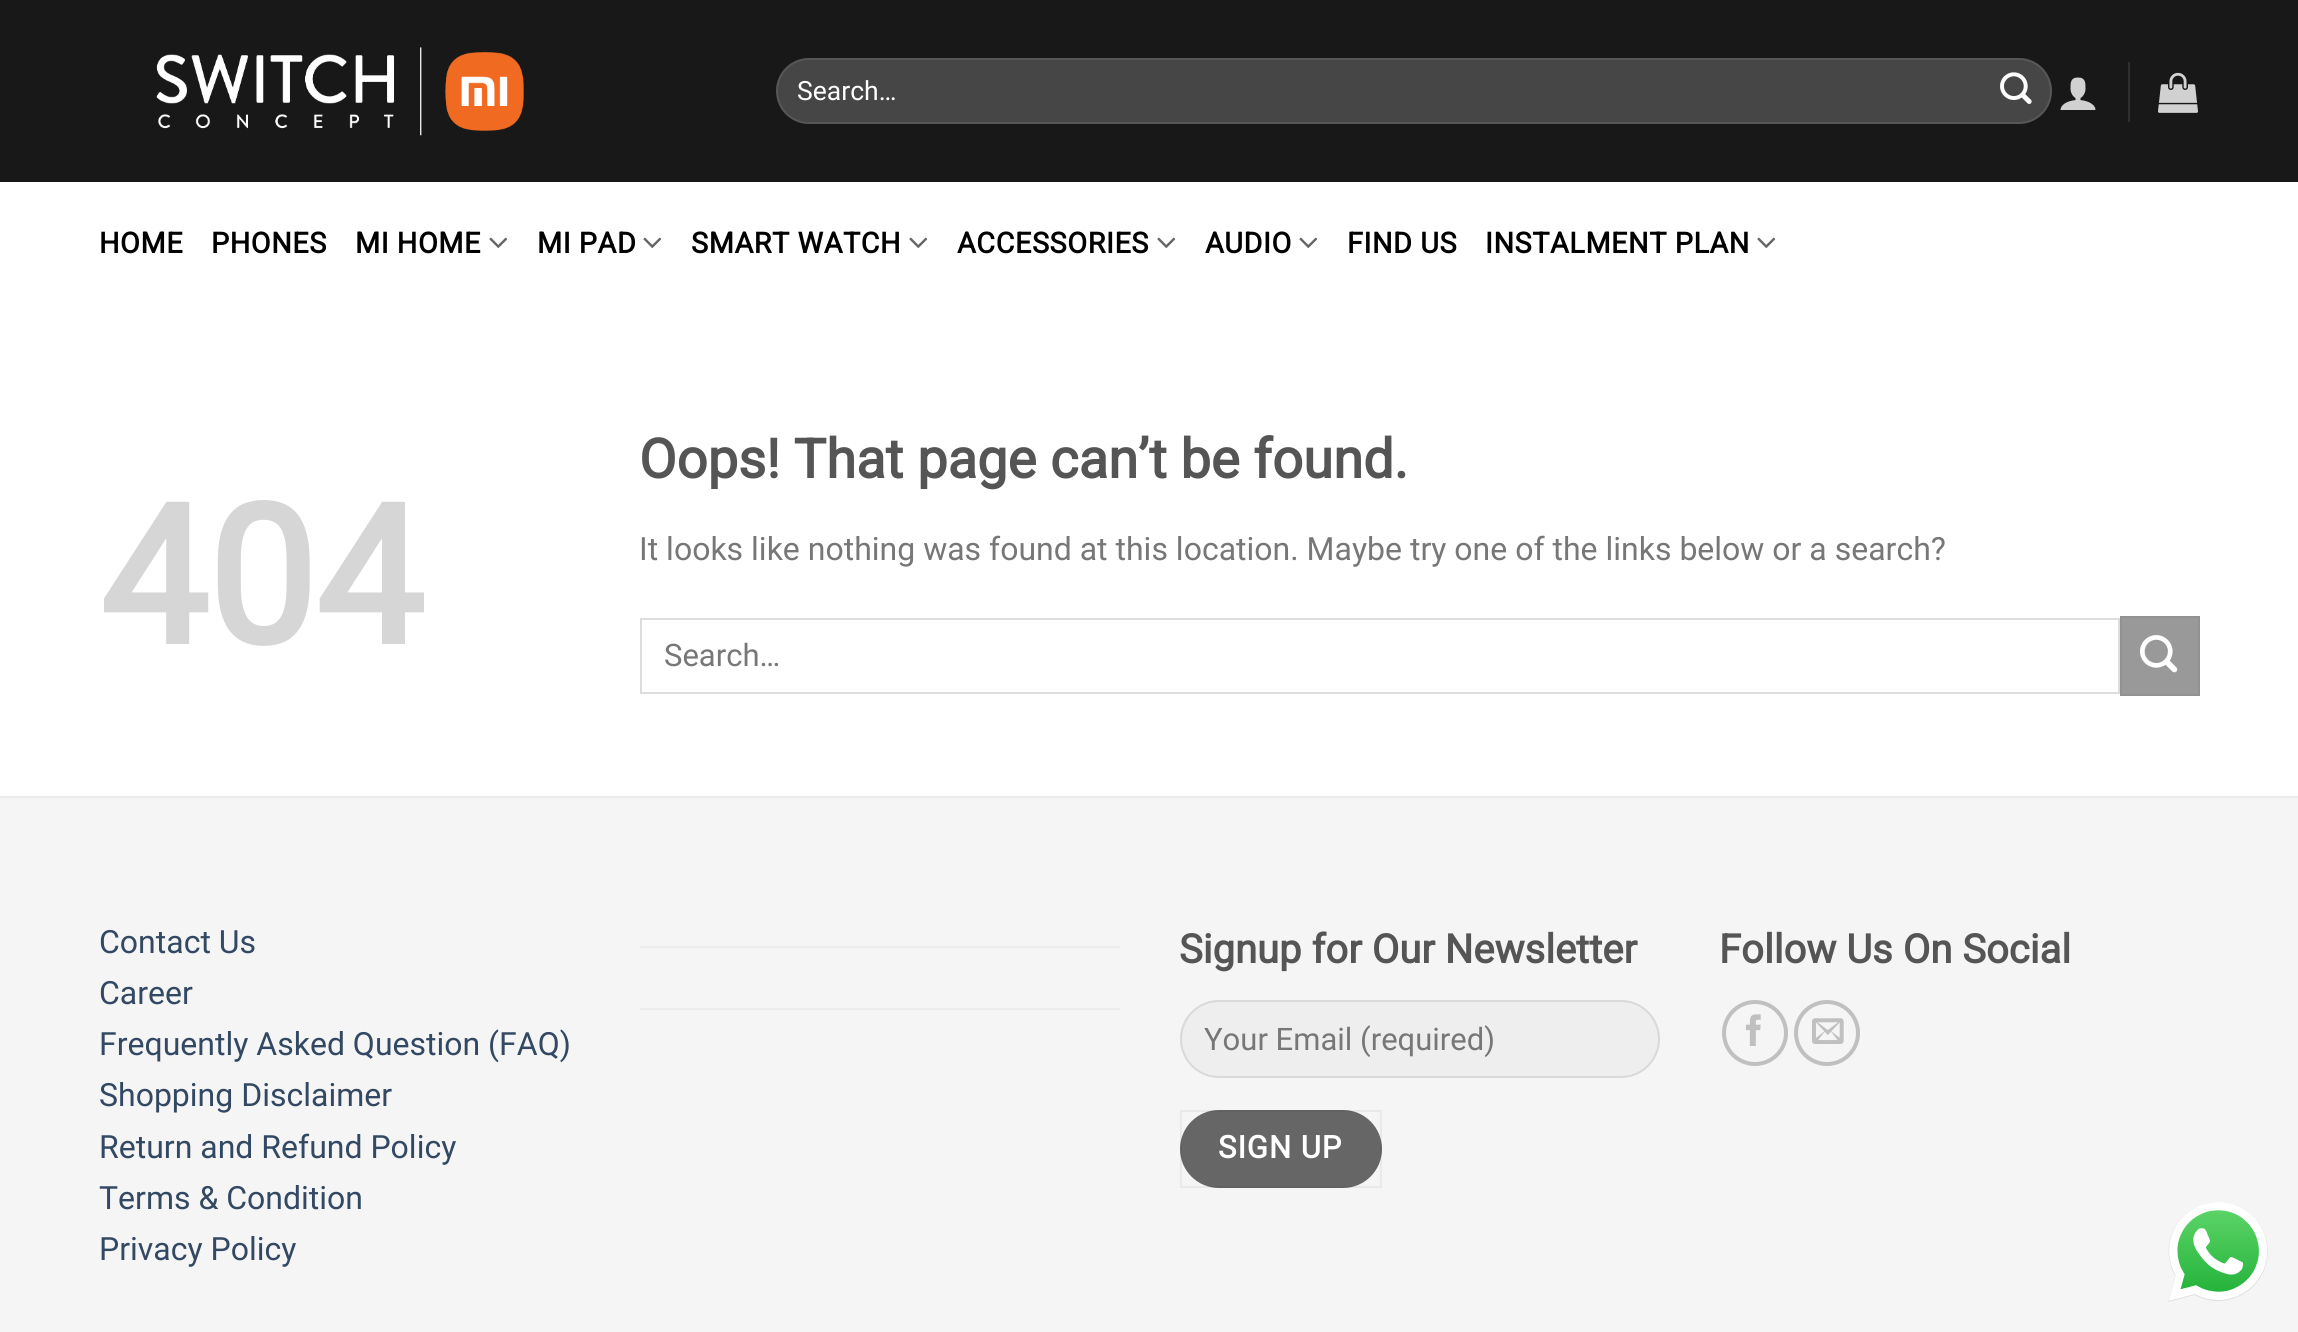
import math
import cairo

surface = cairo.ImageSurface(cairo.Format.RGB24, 2298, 1332)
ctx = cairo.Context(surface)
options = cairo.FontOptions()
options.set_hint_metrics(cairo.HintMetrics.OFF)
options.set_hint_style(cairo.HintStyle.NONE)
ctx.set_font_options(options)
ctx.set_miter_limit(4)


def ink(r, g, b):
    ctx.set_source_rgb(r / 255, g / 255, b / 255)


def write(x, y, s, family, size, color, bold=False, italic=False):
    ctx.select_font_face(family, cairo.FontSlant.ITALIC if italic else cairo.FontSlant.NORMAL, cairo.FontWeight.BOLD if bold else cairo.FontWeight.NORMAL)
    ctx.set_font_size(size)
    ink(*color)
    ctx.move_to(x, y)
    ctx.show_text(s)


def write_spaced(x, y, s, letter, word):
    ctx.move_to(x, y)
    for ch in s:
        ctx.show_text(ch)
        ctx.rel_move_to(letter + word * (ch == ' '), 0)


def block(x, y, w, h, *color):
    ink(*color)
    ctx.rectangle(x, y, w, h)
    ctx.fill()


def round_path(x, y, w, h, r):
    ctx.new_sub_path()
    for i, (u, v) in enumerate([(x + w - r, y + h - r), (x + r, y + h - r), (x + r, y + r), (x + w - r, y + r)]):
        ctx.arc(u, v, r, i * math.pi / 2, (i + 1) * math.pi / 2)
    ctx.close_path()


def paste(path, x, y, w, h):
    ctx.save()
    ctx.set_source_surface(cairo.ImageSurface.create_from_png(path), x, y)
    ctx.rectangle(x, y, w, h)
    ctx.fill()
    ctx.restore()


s1 = dict(family="Roboto", size=26.5, color=(255, 255, 255))
s2 = dict(family="Roboto", size=192, color=(214, 214, 214), bold=True)
s3 = dict(family="Roboto", size=54.4, color=(85, 85, 85), bold=True)
s4 = dict(family="Roboto", size=32, color=(119, 119, 119))
s5 = dict(family="Roboto", size=31, color=(119, 119, 119))
s6 = dict(family="Roboto", size=32, color=(51, 72, 98))
s7 = dict(family="Roboto", size=40, color=(85, 85, 85), bold=True)

ink(255, 255, 255)
ctx.paint()
block(0, 0, 2298, 182, 24, 24, 24)
paste("pic1.png", 156, 47, 368, 89)
ink(70, 70, 70)
round_path(776, 58, 1276, 66, 33)
ctx.fill()
round_path(777, 59, 1274, 64, 32)
ctx.set_source_rgba(1, 1, 1, 0.09)
ctx.stroke()
write(797, 100, "Search…", **s1)
paste("pic2.png", 2000, 72, 32, 32)
paste("pic3.png", 2060, 77, 36, 33)
block(2128, 62, 2, 60, 47, 47, 47)
paste("pic4.png", 2158, 72, 40, 41)
ctx.select_font_face("Roboto", cairo.FontSlant.NORMAL, cairo.FontWeight.BOLD)
ctx.set_font_size(28.75)
ink(0, 0, 0)
write_spaced(99, 253, "HOME", 0.6, 0)
write_spaced(211, 253, "PHONES", 0.6, 0)
write_spaced(355, 253, "MI HOME", 0.6, 0)
paste("pic5.png", 489, 237, 19, 11)
write_spaced(537, 253, "MI PAD", 0.6, 0)
paste("pic5.png", 643, 237, 19, 11)
write_spaced(691, 253, "SMART WATCH", 0.6, 0)
paste("pic5.png", 909, 237, 19, 11)
write_spaced(957, 253, "ACCESSORIES", 0.6, 0)
paste("pic5.png", 1157, 237, 19, 11)
write_spaced(1205, 253, "AUDIO", 0.6, 0)
paste("pic5.png", 1299, 237, 19, 11)
write_spaced(1347, 253, "FIND US", 0.6, 0)
write_spaced(1485, 253, "INSTALMENT PLAN", 0.6, 0)
paste("pic5.png", 1757, 237, 19, 11)
write(99, 644, "404", **s2)
write(639, 478, "Oops! That page can’t be found.", **s3)
write(639, 560, "It looks like nothing was found at this location. Maybe try one of the links below or a search?", **s4)
ctx.rectangle(641, 619, 1478, 74)
ink(221, 221, 221)
ctx.stroke()
write(664, 666, "Search…", **s5)
ink(153, 153, 153)
ctx.rectangle(2121, 617, 78, 78)
ctx.fill_preserve()
ink(145, 145, 145)
ctx.stroke()
paste("pic6.png", 2140, 635, 38, 38)
block(0, 798, 2298, 534, 245, 245, 245)
block(0, 796, 2298, 2, 235, 235, 235)
write(99, 953, "Contact Us", **s6)
write(99, 1004, "Career", **s6)
write(99, 1055, "Frequently Asked Question (FAQ)", **s6)
write(99, 1106, "Shopping Disclaimer", **s6)
write(99, 1158, "Return and Refund Policy", **s6)
write(99, 1209, "Terms & Condition", **s6)
write(99, 1260, "Privacy Policy", **s6)
block(640, 946, 480, 2, 236, 236, 236)
block(640, 1008, 480, 2, 236, 236, 236)
write(1179, 963, "Signup for Our Newsletter", **s7)
ink(238, 238, 238)
round_path(1180, 1000, 480, 78, 39)
ctx.fill()
round_path(1181, 1001, 478, 76, 38)
ctx.set_source_rgba(0, 0, 0, 0.09)
ctx.stroke()
write(1204, 1050, "Your Email (required)", **s5)
ink(102, 102, 102)
round_path(1180, 1110, 202, 78, 39)
ctx.fill()
ctx.rectangle(1181, 1111, 200, 76)
ctx.set_source_rgba(0, 0, 0, 0.05)
ctx.stroke()
ctx.select_font_face("Roboto", cairo.FontSlant.NORMAL, cairo.FontWeight.BOLD)
ink(255, 255, 255)
write_spaced(1218, 1158, "SIGN UP", 1, 0)
write(1719, 963, "Follow Us On Social", **s7)
ctx.new_path()
ctx.arc(1755, 1033, 31, 0, 2 * math.pi)
ink(192, 192, 192)
ctx.set_line_width(4)
ctx.stroke()
paste("pic7.png", 1745, 1014, 16, 32)
ctx.arc(1827, 1033, 31, 0, 2 * math.pi)
ctx.stroke()
paste("pic8.png", 1812, 1018, 32, 26)
paste("pic9.png", 2168, 1202, 100, 100)
surface.write_to_png("screenshot.png")
